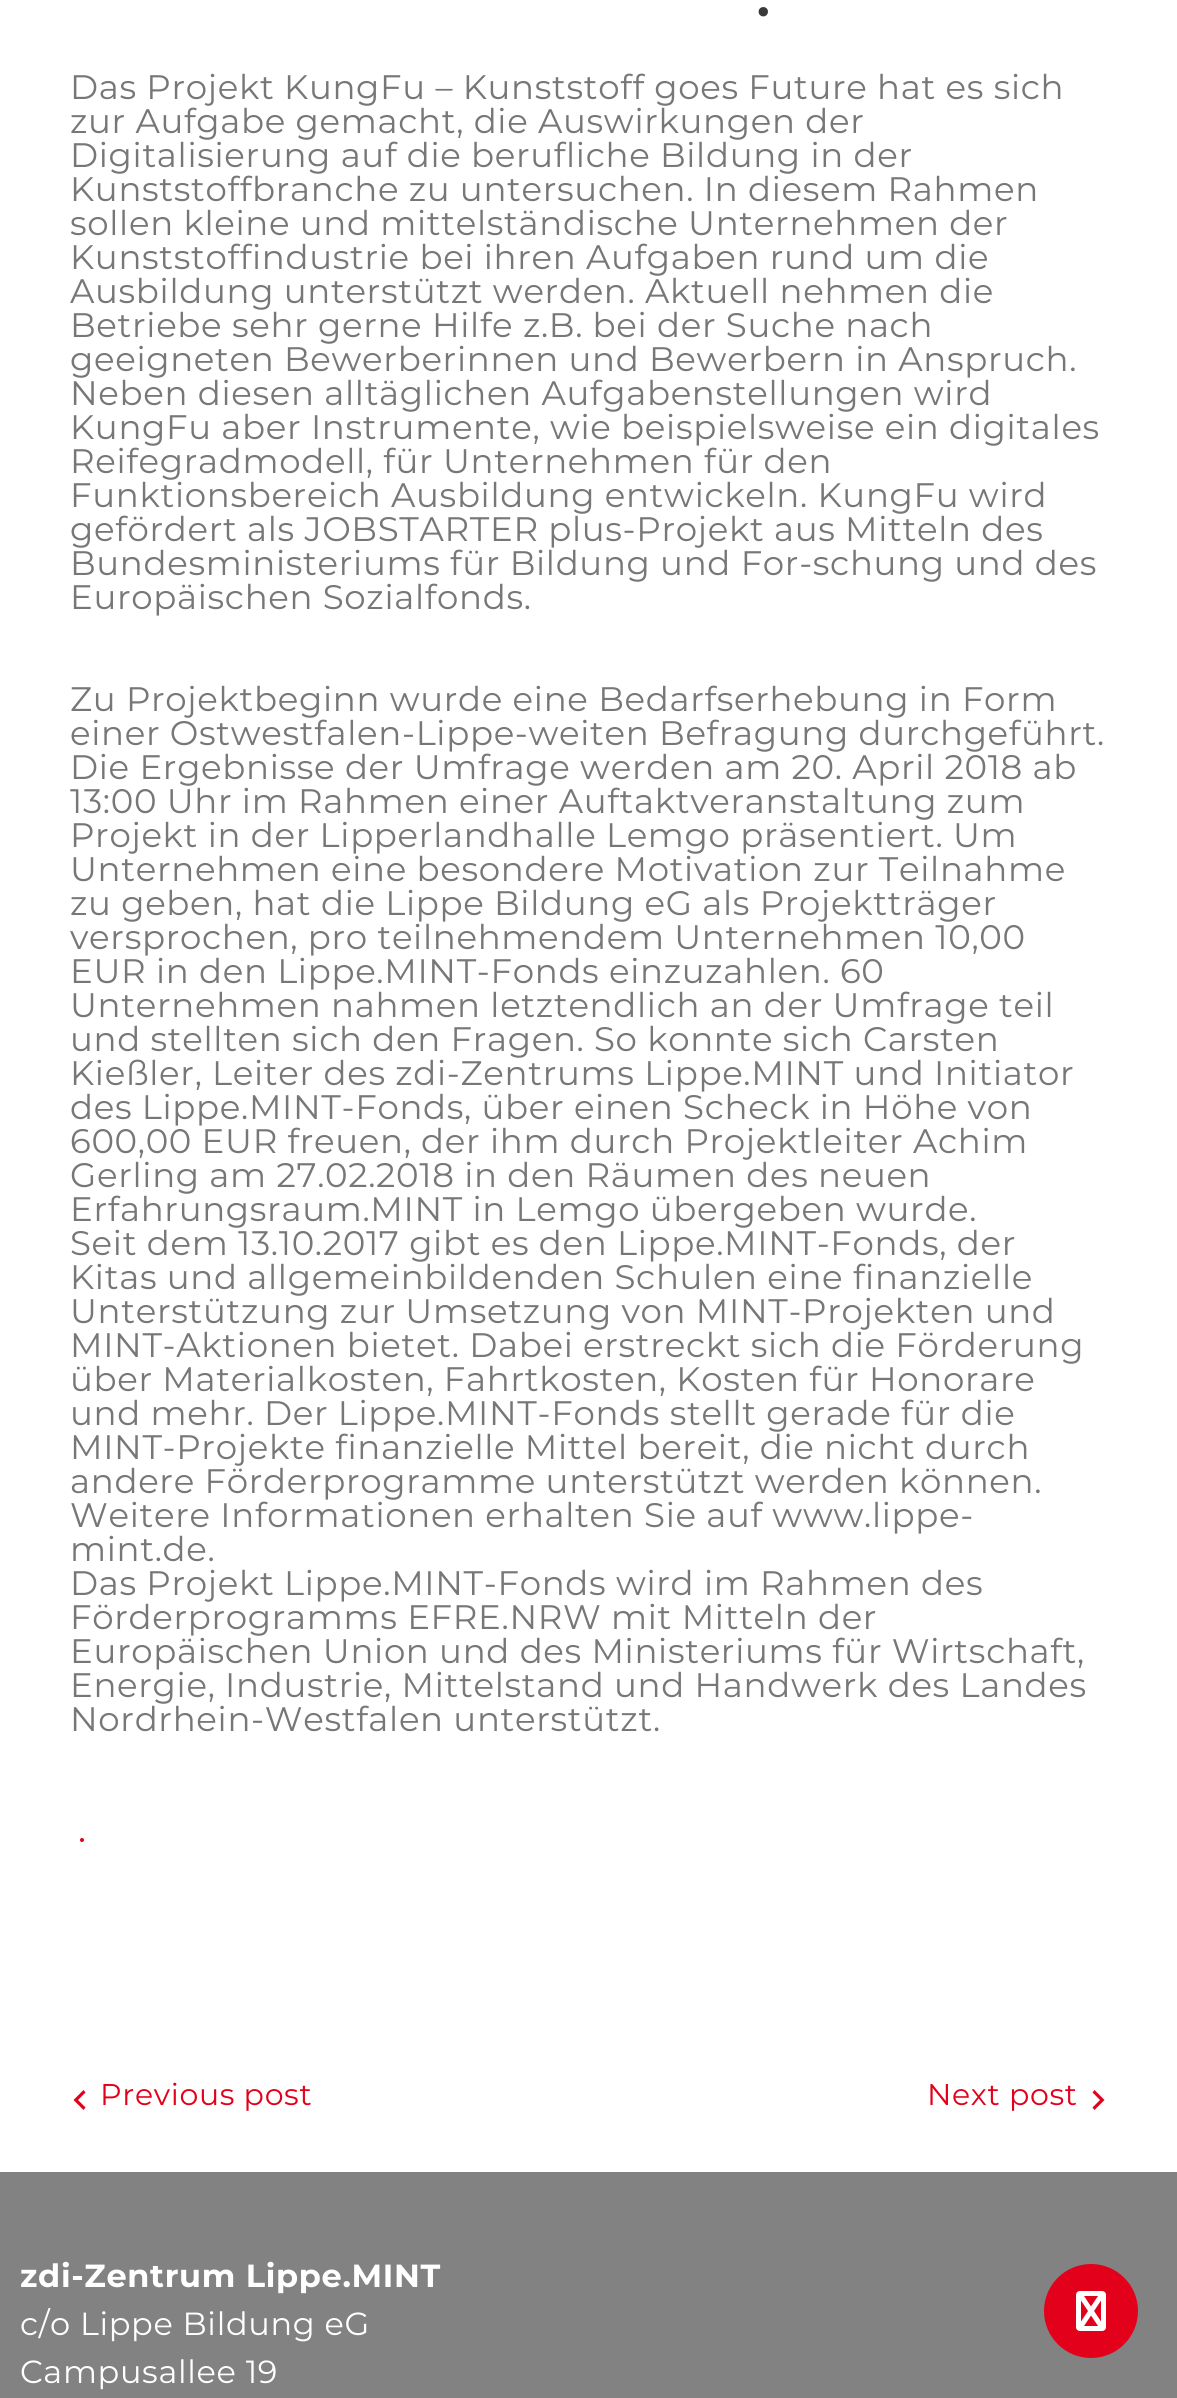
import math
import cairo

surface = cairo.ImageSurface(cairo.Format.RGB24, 1177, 2398)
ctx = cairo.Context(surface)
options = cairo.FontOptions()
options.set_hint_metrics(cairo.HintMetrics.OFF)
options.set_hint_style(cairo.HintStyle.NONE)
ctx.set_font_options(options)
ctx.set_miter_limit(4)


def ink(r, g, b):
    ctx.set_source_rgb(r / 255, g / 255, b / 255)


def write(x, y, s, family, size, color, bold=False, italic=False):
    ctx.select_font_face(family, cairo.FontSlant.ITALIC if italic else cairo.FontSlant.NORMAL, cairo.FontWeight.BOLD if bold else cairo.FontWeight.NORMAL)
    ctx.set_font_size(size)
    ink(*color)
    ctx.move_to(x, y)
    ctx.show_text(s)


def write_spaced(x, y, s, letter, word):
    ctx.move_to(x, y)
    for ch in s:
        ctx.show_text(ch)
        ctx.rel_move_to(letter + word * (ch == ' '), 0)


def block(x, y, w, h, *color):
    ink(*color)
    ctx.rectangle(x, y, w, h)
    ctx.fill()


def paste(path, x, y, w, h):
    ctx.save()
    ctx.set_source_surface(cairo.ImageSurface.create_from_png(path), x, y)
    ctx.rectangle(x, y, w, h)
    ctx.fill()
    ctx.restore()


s1 = dict(family="Montserrat", size=48, color=(58, 58, 58), bold=True)

ink(255, 255, 255)
ctx.paint()
write(757, 16, ".", **s1)
ctx.select_font_face("Montserrat Thin")
ctx.set_font_size(34)
ink(119, 119, 119)
write_spaced(70, 99, "Das Projekt KungFu – Kunststoff goes Future hat es sich", 0.68, 0)
write_spaced(70, 133, "zur Aufgabe gemacht, die Auswirkungen der", 0.68, 0)
write_spaced(70, 167, "Digitalisierung auf die berufliche Bildung in der", 0.68, 0)
write_spaced(70, 201, "Kunststoffbranche zu untersuchen. In diesem Rahmen", 0.68, 0)
write_spaced(70, 235, "sollen kleine und mittelständische Unternehmen der", 0.68, 0)
write_spaced(70, 269, "Kunststoffindustrie bei ihren Aufgaben rund um die", 0.68, 0)
write_spaced(70, 303, "Ausbildung unterstützt werden. Aktuell nehmen die", 0.68, 0)
write_spaced(70, 337, "Betriebe sehr gerne Hilfe z.B. bei der Suche nach", 0.68, 0)
write_spaced(70, 371, "geeigneten Bewerberinnen und Bewerbern in Anspruch.", 0.68, 0)
write_spaced(70, 405, "Neben diesen alltäglichen Aufgabenstellungen wird", 0.68, 0)
write_spaced(70, 439, "KungFu aber Instrumente, wie beispielsweise ein digitales", 0.68, 0)
write_spaced(70, 473, "Reifegradmodell, für Unternehmen für den", 0.68, 0)
write_spaced(70, 507, "Funktionsbereich Ausbildung entwickeln. KungFu wird", 0.68, 0)
write_spaced(70, 541, "gefördert als JOBSTARTER plus-Projekt aus Mitteln des", 0.68, 0)
write_spaced(70, 575, "Bundesministeriums für Bildung und For-schung und des", 0.68, 0)
write_spaced(70, 609, "Europäischen Sozialfonds.", 0.68, 0)
write_spaced(70, 711, "Zu Projektbeginn wurde eine Bedarfserhebung in Form", 0.68, 0)
write_spaced(70, 745, "einer Ostwestfalen-Lippe-weiten Befragung durchgeführt.", 0.68, 0)
write_spaced(70, 779, "Die Ergebnisse der Umfrage werden am 20. April 2018 ab", 0.68, 0)
write_spaced(70, 813, "13:00 Uhr im Rahmen einer Auftaktveranstaltung zum", 0.68, 0)
write_spaced(70, 847, "Projekt in der Lipperlandhalle Lemgo präsentiert. Um", 0.68, 0)
write_spaced(70, 881, "Unternehmen eine besondere Motivation zur Teilnahme", 0.68, 0)
write_spaced(70, 915, "zu geben, hat die Lippe Bildung eG als Projektträger", 0.68, 0)
write_spaced(70, 949, "versprochen, pro teilnehmendem Unternehmen 10,00", 0.68, 0)
write_spaced(70, 983, "EUR in den Lippe.MINT-Fonds einzuzahlen. 60", 0.68, 0)
write_spaced(70, 1017, "Unternehmen nahmen letztendlich an der Umfrage teil", 0.68, 0)
write_spaced(70, 1051, "und stellten sich den Fragen. So konnte sich Carsten", 0.68, 0)
write_spaced(70, 1085, "Kießler, Leiter des zdi-Zentrums Lippe.MINT und Initiator", 0.68, 0)
write_spaced(70, 1119, "des Lippe.MINT-Fonds, über einen Scheck in Höhe von", 0.68, 0)
write_spaced(70, 1153, "600,00 EUR freuen, der ihm durch Projektleiter Achim", 0.68, 0)
write_spaced(70, 1187, "Gerling am 27.02.2018 in den Räumen des neuen", 0.68, 0)
write_spaced(70, 1221, "Erfahrungsraum.MINT in Lemgo übergeben wurde.", 0.68, 0)
write_spaced(70, 1255, "Seit dem 13.10.2017 gibt es den Lippe.MINT-Fonds, der", 0.68, 0)
write_spaced(70, 1289, "Kitas und allgemeinbildenden Schulen eine finanzielle", 0.68, 0)
write_spaced(70, 1323, "Unterstützung zur Umsetzung von MINT-Projekten und", 0.68, 0)
write_spaced(70, 1357, "MINT-Aktionen bietet. Dabei erstreckt sich die Förderung", 0.68, 0)
write_spaced(70, 1391, "über Materialkosten, Fahrtkosten, Kosten für Honorare", 0.68, 0)
write_spaced(70, 1425, "und mehr. Der Lippe.MINT-Fonds stellt gerade für die", 0.68, 0)
write_spaced(70, 1459, "MINT-Projekte finanzielle Mittel bereit, die nicht durch", 0.68, 0)
write_spaced(70, 1493, "andere Förderprogramme unterstützt werden können.", 0.68, 0)
write_spaced(70, 1527, "Weitere Informationen erhalten Sie auf www.lippe-", 0.68, 0)
write_spaced(70, 1561, "mint.de.", 0.68, 0)
write_spaced(70, 1595, "Das Projekt Lippe.MINT-Fonds wird im Rahmen des", 0.68, 0)
write_spaced(70, 1629, "Förderprogramms EFRE.NRW mit Mitteln der", 0.68, 0)
write_spaced(70, 1663, "Europäischen Union und des Ministeriums für Wirtschaft,", 0.68, 0)
write_spaced(70, 1697, "Energie, Industrie, Mittelstand und Handwerk des Landes", 0.68, 0)
write_spaced(70, 1731, "Nordrhein-Westfalen unterstützt.", 0.68, 0)
ink(226, 0, 26)
ctx.new_path()
ctx.arc(82, 1840, 2, 0, 2 * math.pi)
ctx.fill()
ctx.new_path()
ctx.move_to(85.5, 2092.5)
ctx.line_to(78, 2100)
ctx.line_to(85.5, 2107.5)
ctx.line_to(83.5, 2110)
ctx.line_to(73.5, 2100)
ctx.line_to(83.5, 2090)
ctx.close_path()
ctx.fill()
ctx.set_font_size(30)
write_spaced(100, 2105, "Previous post", 0.68, 0)
write_spaced(927, 2105, "Next post", 0.68, 0)
ctx.new_path()
ctx.move_to(1094.5, 2090)
ctx.line_to(1104.5, 2100)
ctx.line_to(1094.5, 2110)
ctx.line_to(1092.5, 2107.5)
ctx.line_to(1100, 2100)
ctx.line_to(1092.5, 2092.5)
ctx.close_path()
ctx.fill()
block(0, 2172, 1177, 226, 130, 130, 130)
ctx.select_font_face("Montserrat", cairo.FontSlant.NORMAL, cairo.FontWeight.BOLD)
ctx.set_font_size(32)
ink(255, 255, 255)
write_spaced(20, 2287, "zdi-Zentrum Lippe.MINT", 0.68, 0)
ctx.select_font_face("Montserrat Thin")
write_spaced(20, 2335, "c/o Lippe Bildung eG", 0.68, 0)
write_spaced(20, 2383, "Campusallee 19", 0.68, 0)
ink(226, 0, 26)
ctx.new_path()
ctx.arc(1091, 2311, 47, 0, 2 * math.pi)
ctx.fill()
paste("pic1.png", 1076, 2291, 30, 40)
surface.write_to_png("screenshot.png")
